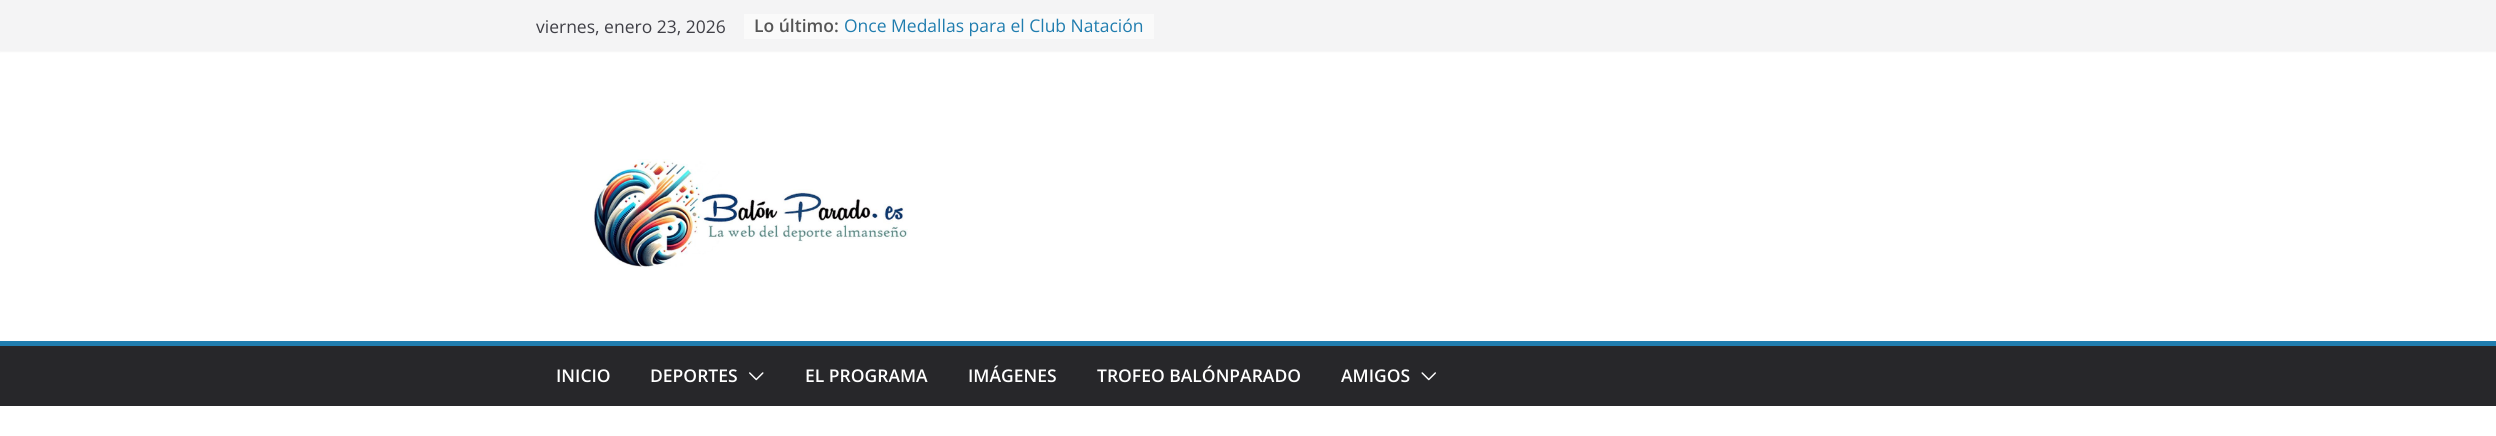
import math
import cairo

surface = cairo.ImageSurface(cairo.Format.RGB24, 2496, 436)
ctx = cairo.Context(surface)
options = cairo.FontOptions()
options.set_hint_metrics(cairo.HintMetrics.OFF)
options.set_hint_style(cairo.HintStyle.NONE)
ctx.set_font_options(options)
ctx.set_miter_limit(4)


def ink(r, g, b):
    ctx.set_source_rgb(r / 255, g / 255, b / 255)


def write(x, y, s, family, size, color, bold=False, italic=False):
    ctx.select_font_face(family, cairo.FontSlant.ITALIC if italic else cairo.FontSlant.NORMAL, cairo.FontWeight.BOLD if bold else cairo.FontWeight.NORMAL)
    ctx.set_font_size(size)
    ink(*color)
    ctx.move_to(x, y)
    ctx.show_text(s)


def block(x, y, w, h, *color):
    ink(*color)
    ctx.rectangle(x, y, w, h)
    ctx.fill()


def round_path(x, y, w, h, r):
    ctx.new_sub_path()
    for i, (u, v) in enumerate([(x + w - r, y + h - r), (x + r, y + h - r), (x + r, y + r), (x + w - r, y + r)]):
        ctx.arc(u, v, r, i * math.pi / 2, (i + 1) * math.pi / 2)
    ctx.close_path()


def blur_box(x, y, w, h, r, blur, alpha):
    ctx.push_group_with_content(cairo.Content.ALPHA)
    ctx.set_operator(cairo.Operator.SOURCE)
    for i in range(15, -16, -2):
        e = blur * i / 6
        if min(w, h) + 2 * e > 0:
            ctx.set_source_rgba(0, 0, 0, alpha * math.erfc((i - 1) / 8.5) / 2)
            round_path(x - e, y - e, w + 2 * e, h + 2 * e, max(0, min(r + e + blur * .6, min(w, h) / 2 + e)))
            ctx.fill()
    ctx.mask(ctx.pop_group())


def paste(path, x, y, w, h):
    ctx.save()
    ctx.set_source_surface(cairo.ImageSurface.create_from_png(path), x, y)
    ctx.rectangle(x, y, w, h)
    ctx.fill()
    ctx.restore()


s1 = dict(family="Open Sans", size=17.5, color=(63, 63, 70))
s2 = dict(family="Open Sans SemiBold", size=17.5, color=(85, 85, 85))
s3 = dict(family="Open Sans", size=17.5, color=(32, 125, 175))
s4 = dict(family="Open Sans SemiBold", size=17.5, color=(255, 255, 255))

ink(255, 255, 255)
ctx.paint()
ink(0, 0, 0)
blur_box(0, 0, 2496, 51, 0, 1, 0.1)
block(0, 0, 2496, 51, 244, 244, 245)
write(536, 33, "viernes, enero 23, 2026", **s1)
block(744, 14, 410, 25, 250, 250, 250)
write(754, 32, "Lo último:", **s2)
write(844, 32, "Once Medallas para el Club Natación", **s3)
paste("pic1.png", 593, 159, 315, 109)
block(0, 346, 2496, 60, 39, 39, 42)
block(0, 341, 2496, 5, 32, 125, 175)
write(556, 382, "INICIO", **s4)
write(650, 382, "DEPORTES", **s4)
paste("pic2.png", 749, 372, 15, 9)
write(805, 382, "EL PROGRAMA", **s4)
write(968, 382, "IMÁGENES", **s4)
write(1097, 382, "TROFEO BALÓNPARADO", **s4)
write(1341, 382, "AMIGOS", **s4)
paste("pic3.png", 1421, 372, 15, 9)
surface.write_to_png("screenshot.png")
